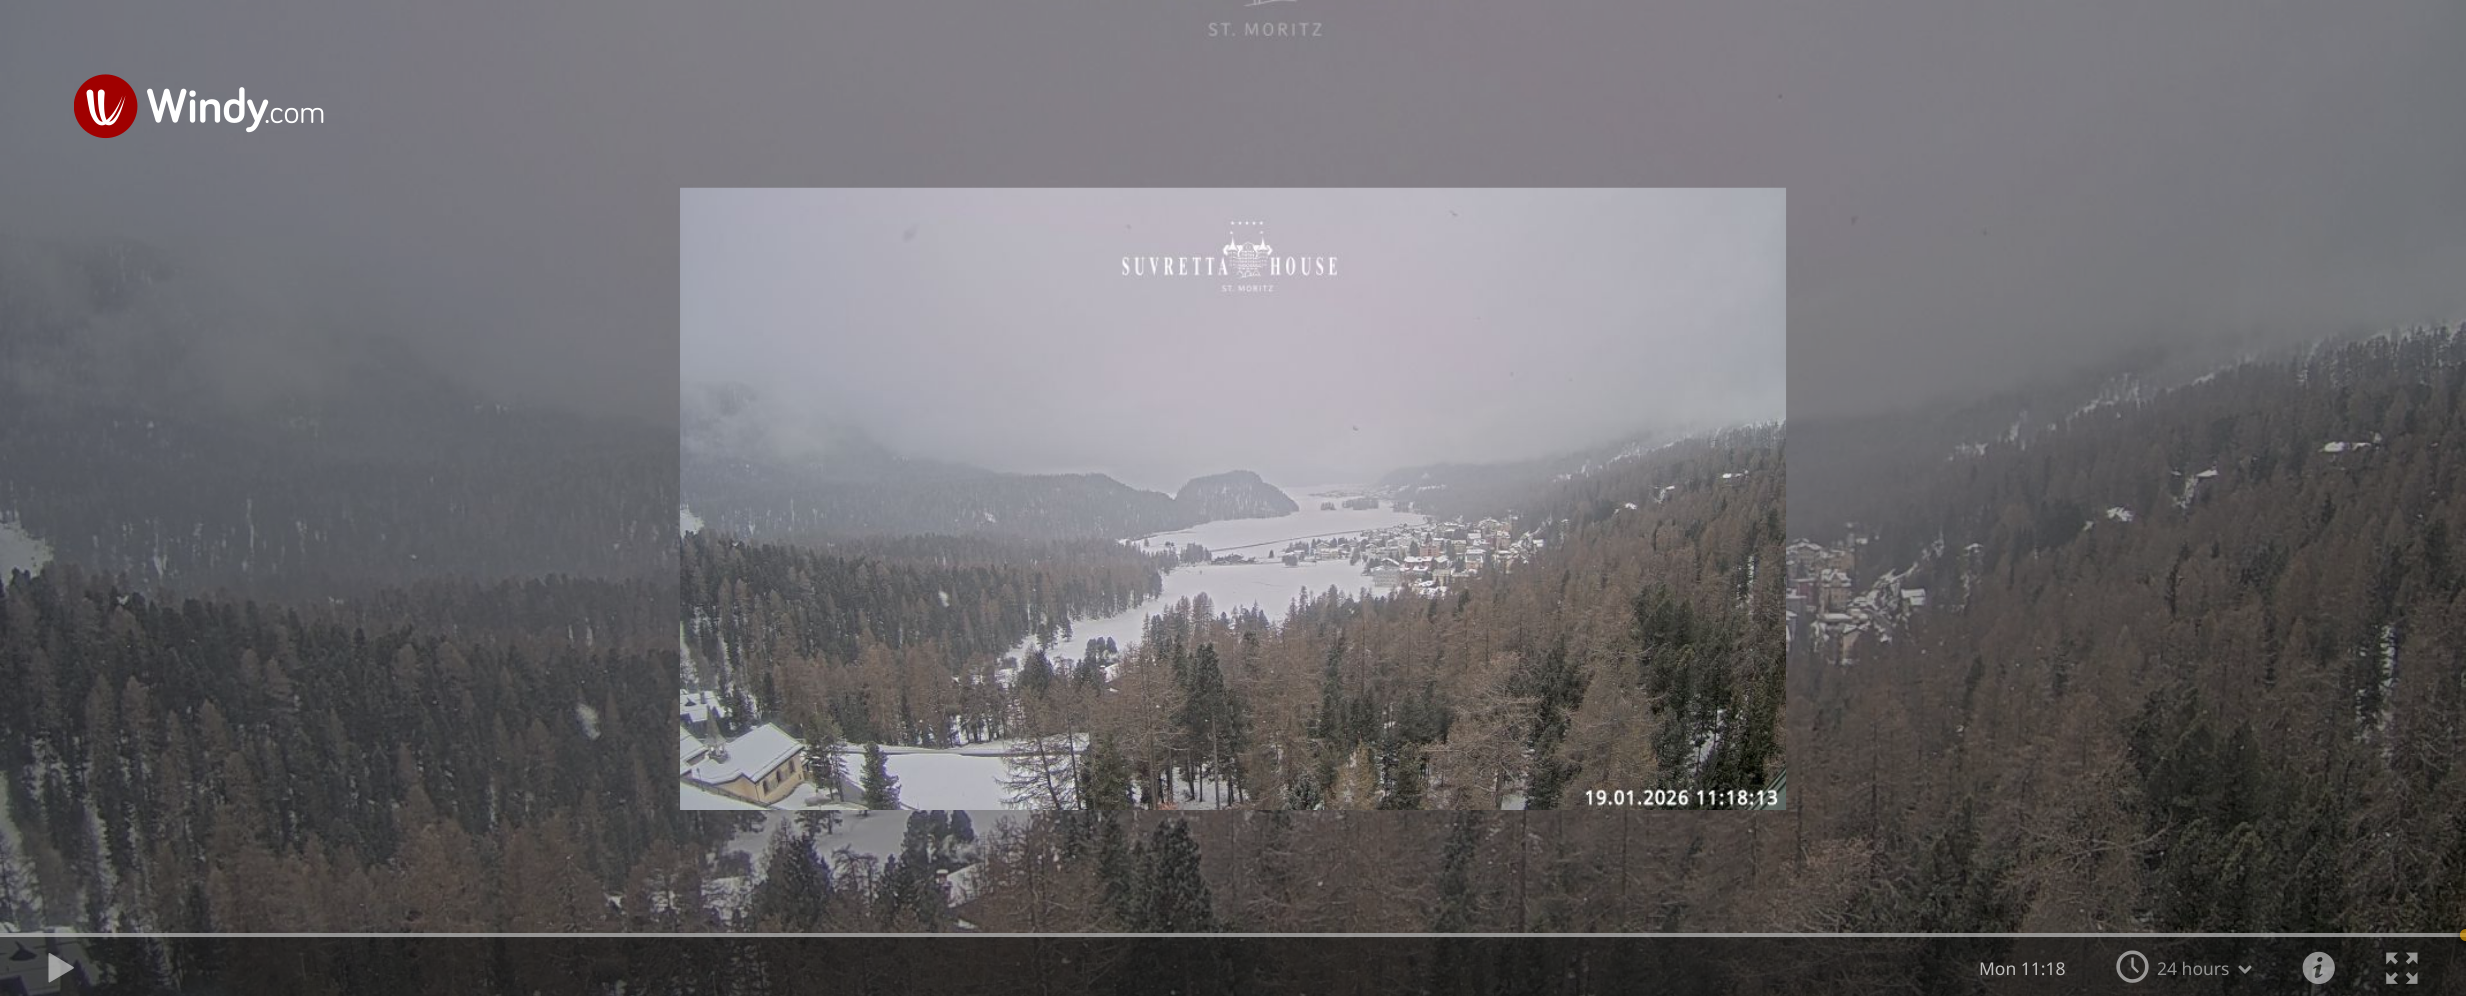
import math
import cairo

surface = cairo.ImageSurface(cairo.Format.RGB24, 2466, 996)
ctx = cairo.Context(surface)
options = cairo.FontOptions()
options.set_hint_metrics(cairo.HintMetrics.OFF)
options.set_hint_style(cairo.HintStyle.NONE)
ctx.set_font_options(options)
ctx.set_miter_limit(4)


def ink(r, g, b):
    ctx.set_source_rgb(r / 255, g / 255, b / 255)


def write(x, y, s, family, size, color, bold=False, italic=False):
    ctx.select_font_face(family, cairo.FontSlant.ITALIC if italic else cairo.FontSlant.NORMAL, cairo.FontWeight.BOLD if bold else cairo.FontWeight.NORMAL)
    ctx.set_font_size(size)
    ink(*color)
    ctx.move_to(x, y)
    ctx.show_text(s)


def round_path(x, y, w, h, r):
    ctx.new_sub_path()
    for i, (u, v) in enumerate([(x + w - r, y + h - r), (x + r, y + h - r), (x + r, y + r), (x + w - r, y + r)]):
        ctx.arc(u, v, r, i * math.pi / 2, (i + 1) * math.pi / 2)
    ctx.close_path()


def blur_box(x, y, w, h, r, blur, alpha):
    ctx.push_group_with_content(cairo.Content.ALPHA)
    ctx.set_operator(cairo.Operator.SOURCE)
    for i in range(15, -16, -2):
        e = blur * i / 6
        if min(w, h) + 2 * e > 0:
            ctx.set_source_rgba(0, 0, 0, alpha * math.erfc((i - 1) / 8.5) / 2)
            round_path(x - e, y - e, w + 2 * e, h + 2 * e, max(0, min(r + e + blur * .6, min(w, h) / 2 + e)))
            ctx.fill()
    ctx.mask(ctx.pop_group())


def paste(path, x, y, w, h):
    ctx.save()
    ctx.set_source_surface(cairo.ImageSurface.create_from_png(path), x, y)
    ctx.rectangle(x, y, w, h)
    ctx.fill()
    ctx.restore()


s1 = dict(family="Noto Sans", size=17.5, color=(191, 190, 189))
s2 = dict(family="Noto Sans", size=17.5, color=(147, 147, 146))

ink(255, 255, 255)
ctx.paint()
paste("pic1.png", 0, 0, 2466, 996)
paste("pic2.png", 74, 74, 250, 65)
paste("pic3.png", 680, 187, 1107, 623)
ctx.set_source_rgba(0.078, 0.078, 0.078, 0.56)
ctx.rectangle(0, 933, 2466, 63)
ctx.fill()
ctx.set_source_rgba(0.863, 0.863, 0.863, 0.59)
ctx.rectangle(0, 933, 2466, 4)
ctx.fill()
ctx.save()
ctx.set_fill_rule(cairo.FillRule.EVEN_ODD)
ctx.new_path()
ctx.move_to(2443, 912)
ctx.line_to(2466, 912)
ctx.line_to(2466, 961)
ctx.line_to(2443, 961)
ctx.close_path()
ctx.move_to(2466, 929)
ctx.line_to(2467, 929)
ctx.curve_to(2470.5, 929, 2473, 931.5, 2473, 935)
ctx.curve_to(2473, 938.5, 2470.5, 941, 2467, 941)
ctx.line_to(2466, 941)
ctx.curve_to(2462.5, 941, 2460, 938.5, 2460, 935)
ctx.curve_to(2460, 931.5, 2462.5, 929, 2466, 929)
ctx.close_path()
ctx.clip()
ink(0, 0, 0)
blur_box(2461, 930, 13, 13, 6.5, 5.5, 0.7)
ctx.restore()
ctx.set_source_rgba(0.831, 0.584, 0, 0.7)
ctx.new_path()
ctx.move_to(2466, 929)
ctx.line_to(2466, 941)
ctx.curve_to(2462.5, 941, 2460, 938.5, 2460, 935)
ctx.curve_to(2460, 931.5, 2462.5, 929, 2466, 929)
ctx.close_path()
ctx.fill()
ctx.set_source_rgba(1, 1, 1, 0.52)
ctx.new_path()
ctx.move_to(74, 967.5)
ctx.line_to(73.5, 967)
ctx.line_to(54, 955.5)
ctx.curve_to(52, 954.5, 49.5, 952, 48.5, 953.5)
ctx.line_to(48.5, 981.5)
ctx.curve_to(48.5, 982, 49, 982.5, 49.5, 982.5)
ctx.line_to(73.5, 968.5)
ctx.close_path()
ctx.fill()
write(1979, 975, "Mon 11:18", **s1)
paste("pic4.png", 2116, 950, 33, 33)
write(2157, 975, "24 hours", **s2)
paste("pic5.png", 2238, 965, 14, 9)
paste("pic6.png", 2302, 951, 33, 33)
paste("pic7.png", 2386, 952, 32, 32)
surface.write_to_png("screenshot.png")
